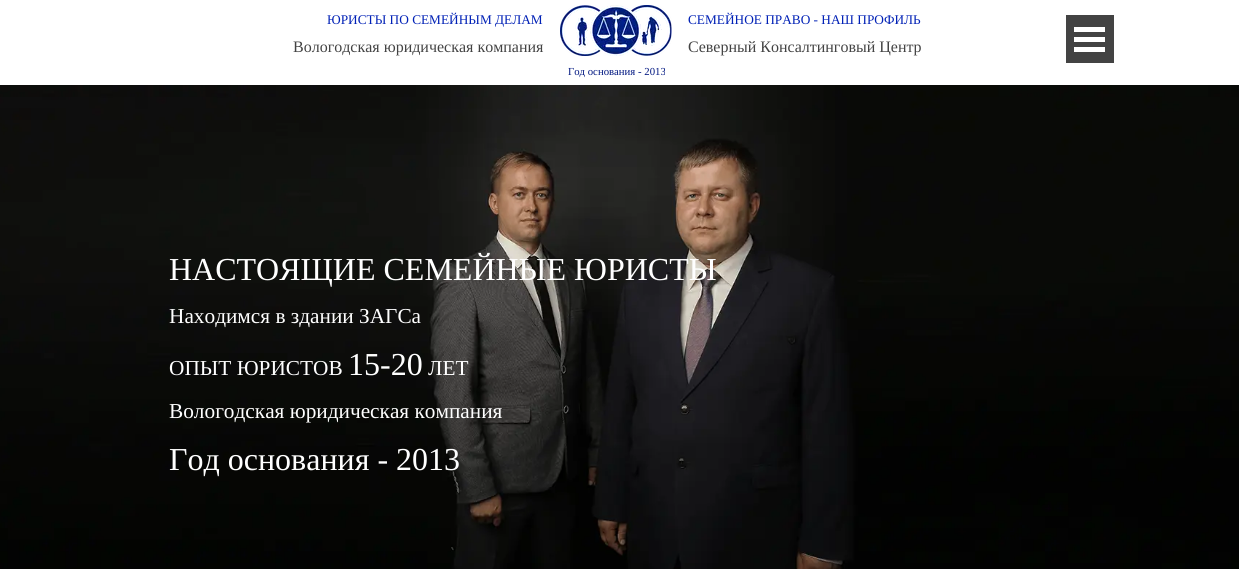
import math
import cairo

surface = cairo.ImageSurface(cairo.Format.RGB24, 1239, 569)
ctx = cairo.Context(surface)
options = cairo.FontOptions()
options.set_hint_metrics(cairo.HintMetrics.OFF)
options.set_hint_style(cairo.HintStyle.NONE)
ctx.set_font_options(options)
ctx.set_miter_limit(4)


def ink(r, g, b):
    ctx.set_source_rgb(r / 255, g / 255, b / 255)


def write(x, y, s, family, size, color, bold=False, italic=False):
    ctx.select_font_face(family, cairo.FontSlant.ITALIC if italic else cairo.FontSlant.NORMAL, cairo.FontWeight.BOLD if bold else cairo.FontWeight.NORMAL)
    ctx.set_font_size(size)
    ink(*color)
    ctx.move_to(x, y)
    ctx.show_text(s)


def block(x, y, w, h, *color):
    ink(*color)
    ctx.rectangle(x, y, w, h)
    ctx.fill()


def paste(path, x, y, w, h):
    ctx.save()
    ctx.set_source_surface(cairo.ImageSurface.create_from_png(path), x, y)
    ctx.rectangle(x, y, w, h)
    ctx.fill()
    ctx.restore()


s1 = dict(family="Liberation Serif", size=13.3, color=(1, 33, 182))
s2 = dict(family="Liberation Serif", size=16, color=(67, 67, 67))
s3 = dict(family="Liberation Serif", size=10.75, color=(1, 23, 129))
s4 = dict(family="Liberation Serif", size=32, color=(255, 255, 255))
s5 = dict(family="Liberation Serif", size=21.3, color=(255, 255, 255))

ink(255, 255, 255)
ctx.paint()
write(327, 24, "ЮРИСТЫ ПО СЕМЕЙНЫМ ДЕЛАМ", **s1)
paste("pic1.png", 560, 5, 112, 51)
write(688, 24, "СЕМЕЙНОЕ ПРАВО - НАШ ПРОФИЛЬ", **s1)
block(1066, 15, 48, 48, 67, 67, 67)
block(1074, 27, 31, 5, 255, 255, 255)
block(1074, 37, 31, 5, 255, 255, 255)
block(1074, 47, 31, 5, 255, 255, 255)
write(293, 52, "Вологодская юридическая компания", **s2)
write(688, 52, "Северный Консалтинговый Центр", **s2)
write(568, 75, "Год основания - 2013", **s3)
paste("pic2.png", 0, 85, 1239, 484)
write(169, 280, "НАСТОЯЩИЕ СЕМЕЙНЫЕ ЮРИСТЫ", **s4)
write(169, 323, "Находимся в здании ЗАГСа", **s5)
write(169, 375, "ОПЫТ ЮРИСТОВ", **s5)
write(348, 375, "15-20", **s4)
write(428, 375, "ЛЕТ", **s5)
write(169, 418, "Вологодская юридическая компания", **s5)
write(169, 470, "Год основания - 2013", **s4)
surface.write_to_png("screenshot.png")
